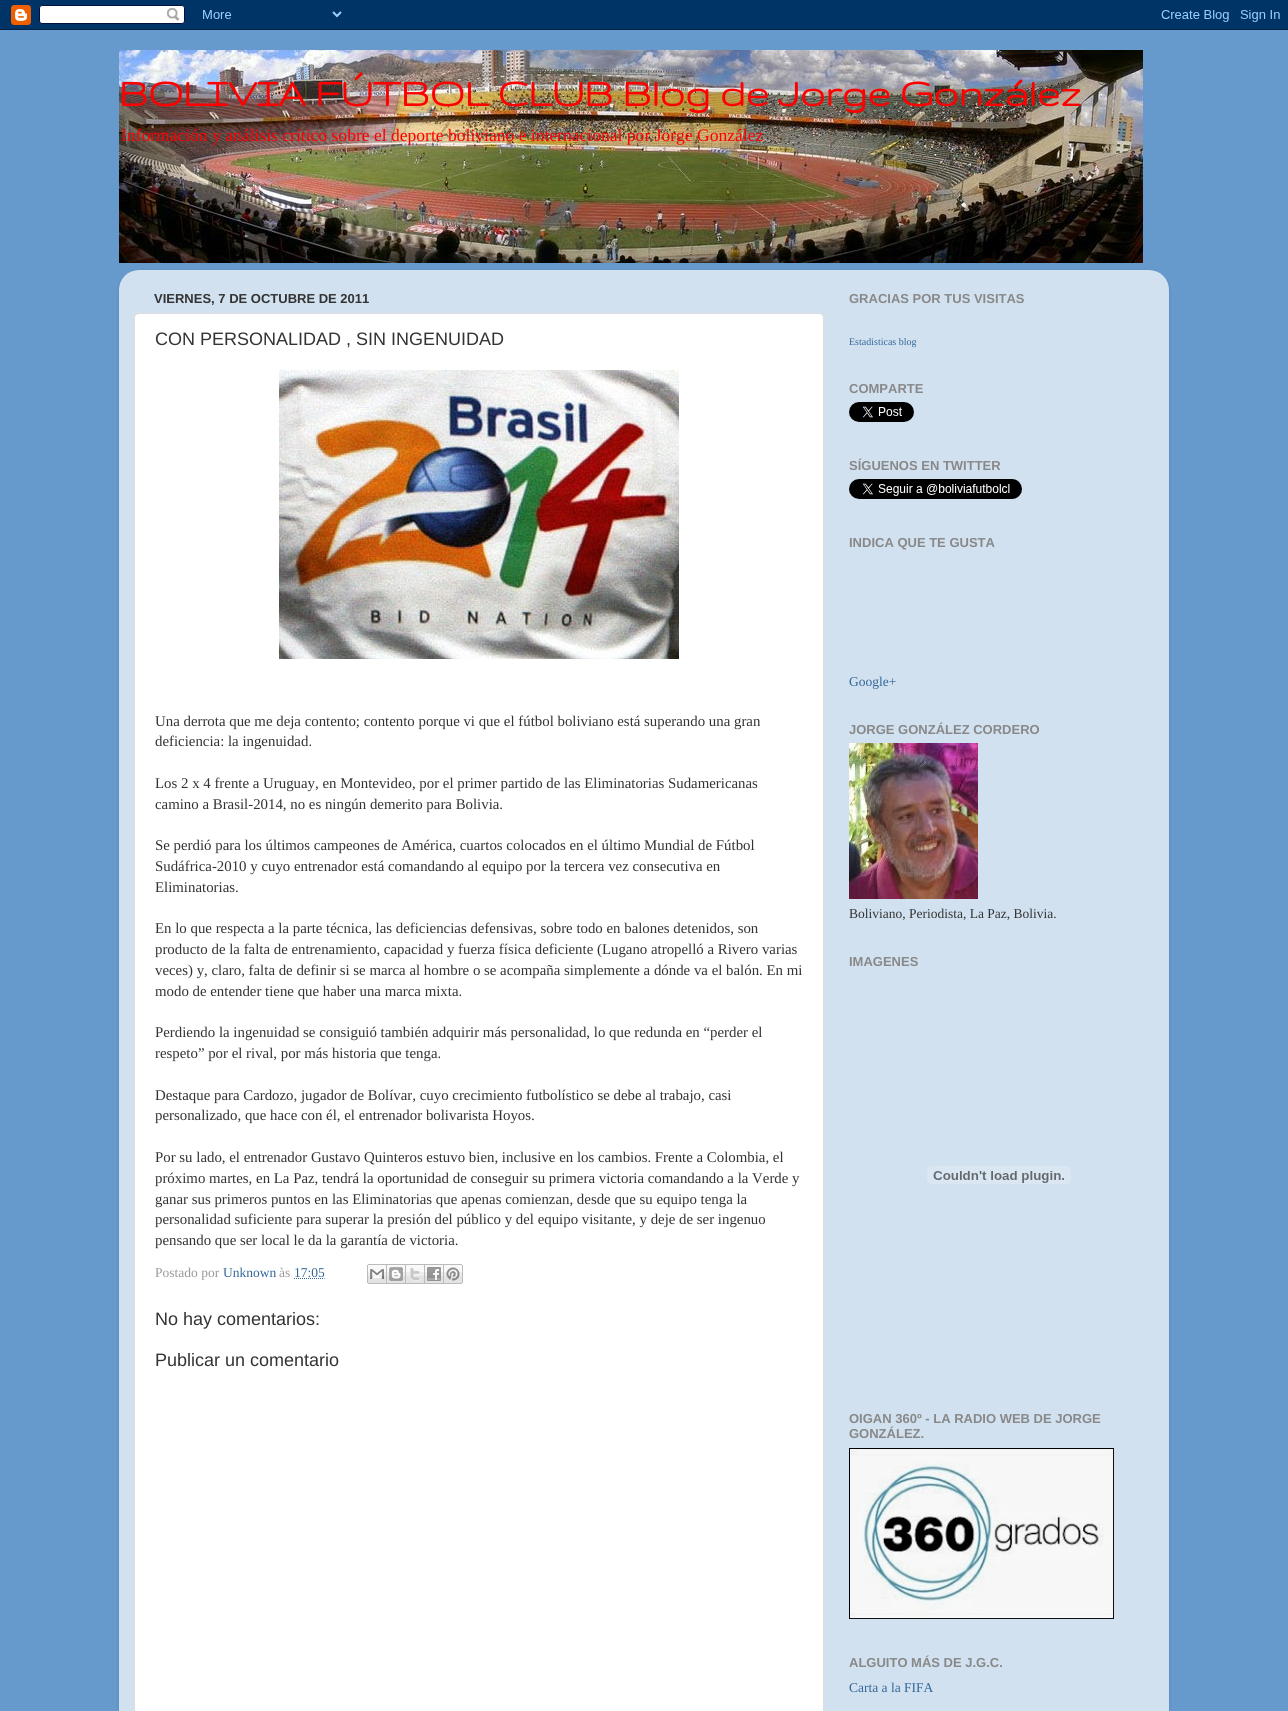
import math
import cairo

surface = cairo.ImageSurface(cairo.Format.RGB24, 1288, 1711)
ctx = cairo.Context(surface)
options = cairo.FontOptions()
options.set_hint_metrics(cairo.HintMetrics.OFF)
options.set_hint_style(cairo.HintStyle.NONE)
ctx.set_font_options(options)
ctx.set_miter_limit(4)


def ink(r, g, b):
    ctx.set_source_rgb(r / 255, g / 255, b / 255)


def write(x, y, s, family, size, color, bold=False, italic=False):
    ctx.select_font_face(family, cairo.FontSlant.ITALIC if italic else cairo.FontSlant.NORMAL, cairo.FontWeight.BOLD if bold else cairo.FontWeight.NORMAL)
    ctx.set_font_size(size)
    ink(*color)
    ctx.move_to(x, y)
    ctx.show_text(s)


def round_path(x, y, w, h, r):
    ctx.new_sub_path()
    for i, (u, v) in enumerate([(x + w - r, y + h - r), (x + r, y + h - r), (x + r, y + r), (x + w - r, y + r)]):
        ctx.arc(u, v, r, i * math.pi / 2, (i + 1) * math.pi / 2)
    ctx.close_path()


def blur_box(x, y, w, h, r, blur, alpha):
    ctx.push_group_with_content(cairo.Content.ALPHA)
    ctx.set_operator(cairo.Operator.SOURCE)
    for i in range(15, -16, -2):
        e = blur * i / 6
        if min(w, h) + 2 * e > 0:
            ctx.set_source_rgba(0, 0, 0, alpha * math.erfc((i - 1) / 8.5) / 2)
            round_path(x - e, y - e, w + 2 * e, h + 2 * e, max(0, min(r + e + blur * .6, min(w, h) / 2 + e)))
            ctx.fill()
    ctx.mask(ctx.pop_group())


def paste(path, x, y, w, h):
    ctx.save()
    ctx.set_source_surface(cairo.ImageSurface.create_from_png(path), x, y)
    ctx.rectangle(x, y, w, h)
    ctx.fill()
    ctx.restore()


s1 = dict(family="Gruppo", size=42, color=(255, 0, 0), bold=True)
s2 = dict(family="Liberation Serif", size=17.55, color=(255, 0, 0))
s3 = dict(family="Liberation Sans", size=13, color=(51, 51, 51), bold=True)
s4 = dict(family="Liberation Sans", size=18, color=(51, 51, 51))
s5 = dict(family="Liberation Serif", size=14.85, color=(51, 51, 51))
s6 = dict(family="Liberation Serif", size=13.5, color=(153, 153, 153))
s7 = dict(family="Liberation Serif", size=13.5, color=(51, 102, 153))
s8 = dict(family="Liberation Sans", size=13, color=(136, 136, 136), bold=True)
s9 = dict(family="Liberation Serif", size=10, color=(51, 102, 153))
s10 = dict(family="Liberation Serif", size=13.5, color=(51, 51, 51))

ink(102, 153, 204)
ctx.paint()
paste("pic1.png", 0, 0, 1288, 30)
paste("pic2.png", 119, 50, 1024, 213)
write(119, 106, "BOLIVIA FÚTBOL CLUB Blog de Jorge González", **s1)
write(121, 141, "Información y análisis crítico sobre el deporte boliviano e internacional por Jorge González", **s2)
ctx.save()
ctx.set_fill_rule(cairo.FillRule.EVEN_ODD)
ctx.new_path()
ctx.move_to(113, 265)
ctx.line_to(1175, 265)
ctx.line_to(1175, 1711)
ctx.line_to(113, 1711)
ctx.close_path()
ctx.move_to(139, 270)
ctx.line_to(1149, 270)
ctx.curve_to(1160, 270, 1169, 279, 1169, 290)
ctx.line_to(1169, 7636)
ctx.line_to(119, 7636)
ctx.line_to(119, 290)
ctx.curve_to(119, 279, 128, 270, 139, 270)
ctx.close_path()
ctx.clip()
ink(0, 0, 0)
blur_box(119, 271, 1050, 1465, 20, 1.5, 0.15)
ctx.restore()
paste("pic3.png", 119, 270, 1050, 1441)
write(154, 303, "VIERNES, 7 DE OCTUBRE DE 2011", **s3)
ink(255, 255, 255)
round_path(134.5, 313.5, 689, 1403, 4.5)
ctx.fill_preserve()
ink(221, 221, 221)
ctx.set_line_width(1)
ctx.stroke()
write(155, 345, "CON PERSONALIDAD , SIN INGENUIDAD", **s4)
paste("pic4.png", 279, 370, 400, 289)
write(155, 726, "Una derrota que me deja contento; contento porque vi que el fútbol boliviano está superando una gran", **s5)
write(155, 746, "deficiencia: la ingenuidad.", **s5)
write(155, 788, "Los 2 x 4 frente a Uruguay, en Montevideo, por el primer partido de las Eliminatorias Sudamericanas", **s5)
write(155, 809, "camino a Brasil-2014, no es ningún demerito para Bolivia.", **s5)
write(155, 850, "Se perdió para los últimos campeones de América, cuartos colocados en el último Mundial de Fútbol", **s5)
write(155, 871, "Sudáfrica-2010 y cuyo entrenador está comandando al equipo por la tercera vez consecutiva en", **s5)
write(155, 892, "Eliminatorias.", **s5)
write(155, 933, "En lo que respecta a la parte técnica, las deficiencias defensivas, sobre todo en balones detenidos, son", **s5)
write(155, 954, "producto de la falta de entrenamiento, capacidad y fuerza física deficiente (Lugano atropelló a Rivero varias", **s5)
write(155, 975, "veces) y, claro, falta de definir si se marca al hombre o se acompaña simplemente a dónde va el balón. En mi", **s5)
write(155, 996, "modo de entender tiene que haber una marca mixta.", **s5)
write(155, 1037, "Perdiendo la ingenuidad se consiguió también adquirir más personalidad, lo que redunda en “perder el", **s5)
write(155, 1058, "respeto” por el rival, por más historia que tenga.", **s5)
write(155, 1100, "Destaque para Cardozo, jugador de Bolívar, cuyo crecimiento futbolístico se debe al trabajo, casi", **s5)
write(155, 1120, "personalizado, que hace con él, el entrenador bolivarista Hoyos.", **s5)
write(155, 1162, "Por su lado, el entrenador Gustavo Quinteros estuvo bien, inclusive en los cambios. Frente a Colombia, el", **s5)
write(155, 1183, "próximo martes, en La Paz, tendrá la oportunidad de conseguir su primera victoria comandando a la Verde y", **s5)
write(155, 1204, "ganar sus primeros puntos en las Eliminatorias que apenas comienzan, desde que su equipo tenga la", **s5)
write(155, 1224, "personalidad suficiente para superar la presión del público y del equipo visitante, y deje de ser ingenuo", **s5)
write(155, 1245, "pensando que ser local le da la garantía de victoria.", **s5)
write(155, 1277, "Postado por", **s6)
write(223, 1277, "Unknown", **s7)
write(279, 1277, "às", **s6)
write(294, 1277, "17:05", **s7)
ctx.new_path()
ctx.move_to(294, 1278.5)
ctx.line_to(324.5, 1278.5)
ctx.set_dash([1, 1])
ctx.stroke()
paste("pic5.png", 367, 1264, 20, 20)
paste("pic6.png", 387, 1264, 19, 20)
paste("pic7.png", 406, 1264, 19, 20)
paste("pic8.png", 425, 1264, 19, 20)
paste("pic9.png", 444, 1264, 19, 20)
write(155, 1325, "No hay comentarios:", **s4)
write(155, 1366, "Publicar un comentario", **s4)
write(849, 303, "GRACIAS POR TUS VISITAS", **s8)
write(849, 345, "Estadisticas blog", **s9)
write(849, 393, "COMPARTE", **s8)
paste("pic10.png", 849, 402, 65, 20)
write(849, 470, "SÍGUENOS EN TWITTER", **s8)
paste("pic11.png", 849, 479, 173, 20)
write(849, 547, "INDICA QUE TE GUSTA", **s8)
write(849, 686, "Google+", **s7)
write(849, 734, "JORGE GONZÁLEZ CORDERO", **s8)
paste("pic12.png", 849, 743, 129, 156)
write(849, 918, "Boliviano, Periodista, La Paz, Bolivia.", **s10)
write(849, 966, "IMAGENES", **s8)
paste("pic13.png", 927, 1166, 144, 18)
write(849, 1423, "OIGAN 360º - LA RADIO WEB DE JORGE", **s8)
write(849, 1438, "GONZÁLEZ.", **s8)
paste("pic14.png", 849, 1448, 265, 171)
write(849, 1667, "ALGUITO MÁS DE J.G.C.", **s8)
write(849, 1692, "Carta a la FIFA", **s7)
surface.write_to_png("screenshot.png")
